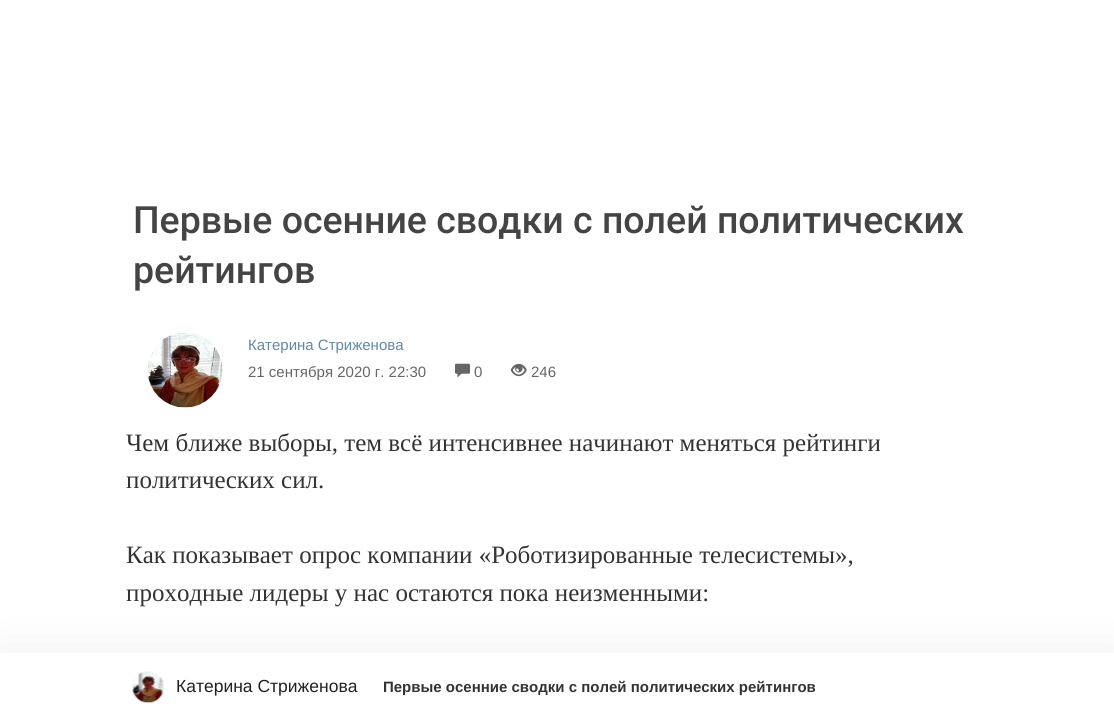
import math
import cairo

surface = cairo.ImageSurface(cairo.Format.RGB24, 1114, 721)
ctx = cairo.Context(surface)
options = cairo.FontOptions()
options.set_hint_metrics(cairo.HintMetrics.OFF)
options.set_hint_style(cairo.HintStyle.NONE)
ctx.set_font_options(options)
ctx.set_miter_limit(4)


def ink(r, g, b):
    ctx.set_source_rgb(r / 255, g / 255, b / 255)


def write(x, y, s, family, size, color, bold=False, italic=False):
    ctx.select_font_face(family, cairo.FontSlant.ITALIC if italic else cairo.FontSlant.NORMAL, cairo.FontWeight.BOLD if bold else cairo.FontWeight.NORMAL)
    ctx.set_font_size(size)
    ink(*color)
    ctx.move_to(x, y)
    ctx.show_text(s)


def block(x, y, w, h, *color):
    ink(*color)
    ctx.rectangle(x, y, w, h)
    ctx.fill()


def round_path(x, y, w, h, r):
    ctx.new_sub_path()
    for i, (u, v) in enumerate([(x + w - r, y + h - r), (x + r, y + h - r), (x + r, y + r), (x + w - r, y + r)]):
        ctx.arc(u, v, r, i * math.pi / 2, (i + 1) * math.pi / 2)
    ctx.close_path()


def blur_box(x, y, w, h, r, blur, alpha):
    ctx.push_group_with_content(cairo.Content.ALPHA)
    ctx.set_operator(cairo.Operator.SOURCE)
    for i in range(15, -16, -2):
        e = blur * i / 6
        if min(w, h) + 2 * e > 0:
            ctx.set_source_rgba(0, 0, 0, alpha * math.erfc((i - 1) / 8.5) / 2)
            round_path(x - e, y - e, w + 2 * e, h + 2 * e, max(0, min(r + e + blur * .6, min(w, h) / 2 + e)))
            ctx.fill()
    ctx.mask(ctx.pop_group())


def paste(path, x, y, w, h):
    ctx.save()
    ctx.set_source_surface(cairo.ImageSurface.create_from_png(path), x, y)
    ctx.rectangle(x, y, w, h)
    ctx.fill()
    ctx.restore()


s1 = dict(family="Roboto Medium", size=37.5, color=(68, 68, 68))
s2 = dict(family="Liberation Sans", size=15, color=(98, 136, 165))
s3 = dict(family="Liberation Sans", size=15, color=(102, 102, 102))
s4 = dict(family="Liberation Serif", size=25, color=(51, 51, 51))
s5 = dict(family="Liberation Sans", size=17.5, color=(33, 33, 33))
s6 = dict(family="Liberation Sans", size=15, color=(51, 51, 51), bold=True)

ink(255, 255, 255)
ctx.paint()
write(133, 233, "Первые осенние сводки с полей политических", **s1)
write(133, 283, "рейтингов", **s1)
paste("pic1.png", 147, 332, 76, 76)
write(248, 350, "Катерина Стриженова", **s2)
write(248, 377, "21 сентября 2020 г. 22:30", **s3)
paste("pic2.png", 455, 363, 15, 15)
write(474, 377, "0", **s3)
paste("pic3.png", 510, 363, 17, 14)
write(531, 377, "246", **s3)
write(126, 451, "Чем ближе выборы, тем всё интенсивнее начинают меняться рейтинги", **s4)
write(126, 488, "политических сил.", **s4)
write(126, 563, "Как показывает опрос компании «Роботизированные телесистемы»,", **s4)
write(126, 601, "проходные лидеры у нас остаются пока неизменными:", **s4)
ink(0, 0, 0)
blur_box(1, 654, 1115, 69, 0, 25, 0.07)
block(0, 653, 1114, 68, 255, 255, 255)
paste("pic4.png", 132, 671, 32, 32)
write(176, 692, "Катерина Стриженова", **s5)
write(383, 692, "Первые осенние сводки с полей политических рейтингов", **s6)
surface.write_to_png("screenshot.png")
